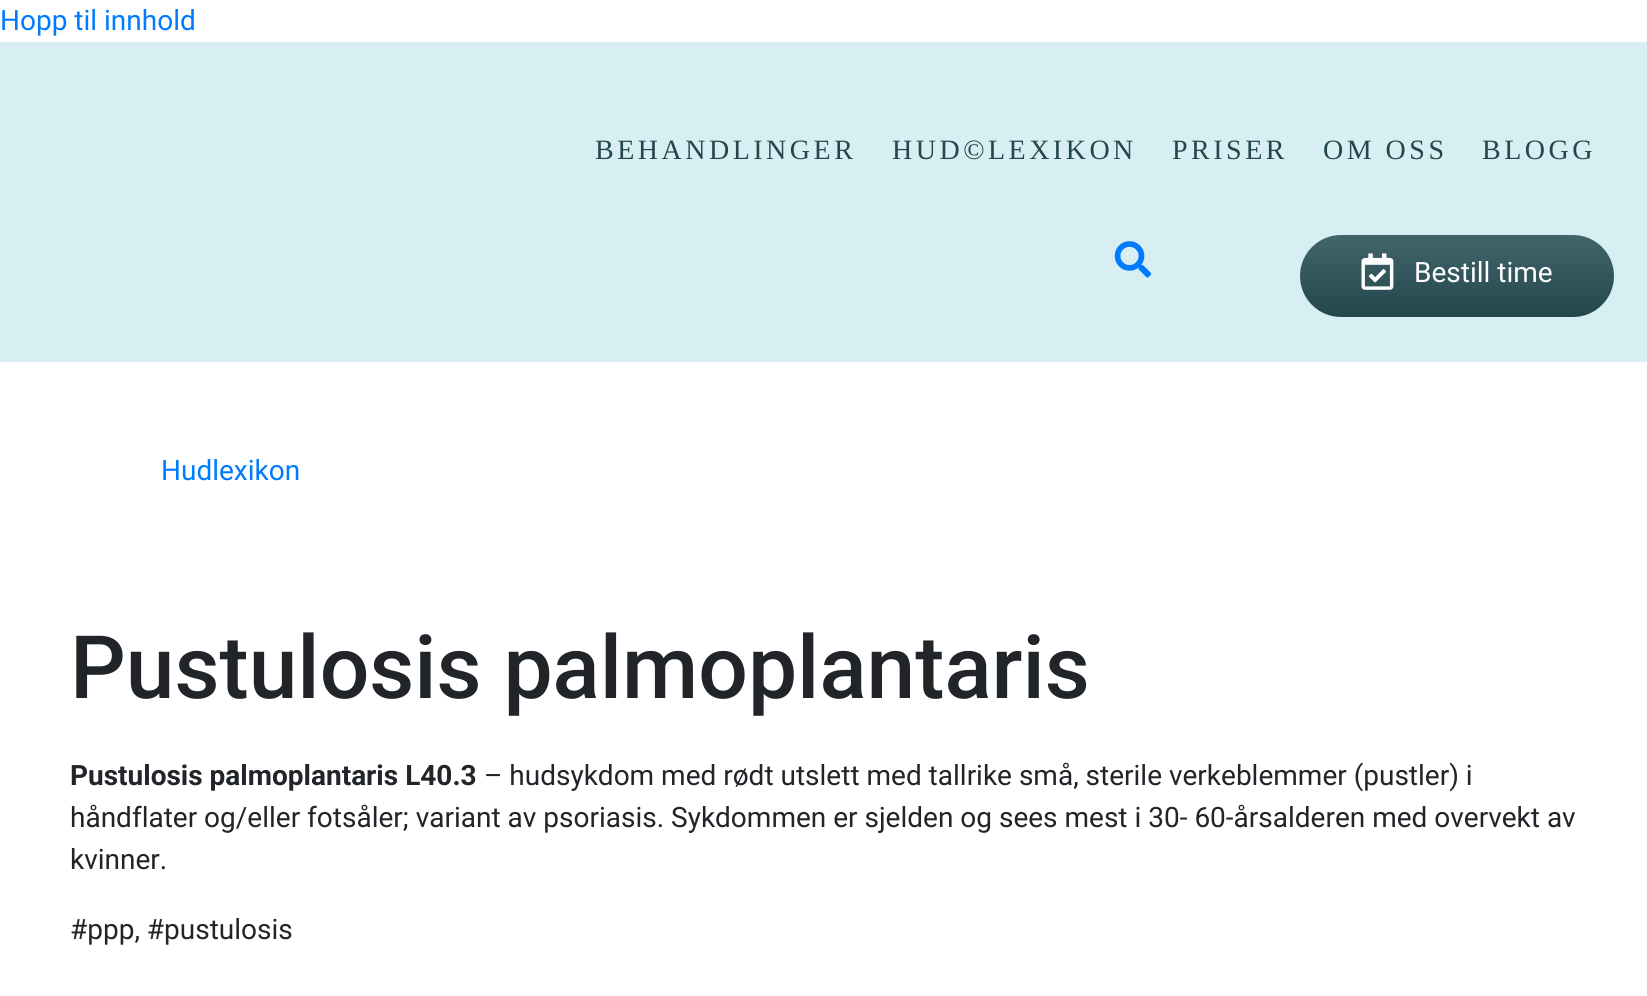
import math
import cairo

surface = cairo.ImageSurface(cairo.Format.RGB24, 1647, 996)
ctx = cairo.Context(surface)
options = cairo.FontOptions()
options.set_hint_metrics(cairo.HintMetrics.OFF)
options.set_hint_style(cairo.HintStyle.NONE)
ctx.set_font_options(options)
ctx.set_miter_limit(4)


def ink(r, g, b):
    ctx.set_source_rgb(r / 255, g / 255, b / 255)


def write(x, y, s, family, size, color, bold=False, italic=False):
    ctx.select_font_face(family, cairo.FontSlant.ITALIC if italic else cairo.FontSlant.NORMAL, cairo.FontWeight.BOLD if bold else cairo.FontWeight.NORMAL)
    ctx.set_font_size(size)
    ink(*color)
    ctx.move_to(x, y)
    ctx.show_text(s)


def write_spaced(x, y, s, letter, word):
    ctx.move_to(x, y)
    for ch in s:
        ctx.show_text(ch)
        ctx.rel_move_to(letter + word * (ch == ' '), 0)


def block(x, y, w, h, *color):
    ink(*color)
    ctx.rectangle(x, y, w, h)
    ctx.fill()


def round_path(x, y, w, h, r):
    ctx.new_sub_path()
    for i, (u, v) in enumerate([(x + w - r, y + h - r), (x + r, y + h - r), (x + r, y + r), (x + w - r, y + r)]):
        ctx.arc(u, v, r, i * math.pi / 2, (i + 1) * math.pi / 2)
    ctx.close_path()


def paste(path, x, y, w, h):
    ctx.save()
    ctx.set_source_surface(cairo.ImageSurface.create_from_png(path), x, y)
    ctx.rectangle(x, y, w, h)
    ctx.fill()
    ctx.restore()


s1 = dict(family="Roboto", size=28, color=(0, 123, 255))
s2 = dict(family="Roboto", size=28, color=(255, 255, 255))
s3 = dict(family="Roboto Medium", size=87.5, color=(33, 37, 41))
s4 = dict(family="Roboto", size=28, color=(33, 37, 41), bold=True)
s5 = dict(family="Roboto", size=28, color=(33, 37, 41))

ink(255, 255, 255)
ctx.paint()
write(0, 30, "Hopp til innhold", **s1)
block(0, 42, 1647, 320, 215, 238, 242)
ctx.select_font_face("Liberation Serif")
ink(36, 70, 77)
write_spaced(595, 159, "BEHANDLINGER", 3.5, 0)
write_spaced(892, 159, "HUD©LEXIKON", 3.5, 0)
write_spaced(1172, 159, "PRISER", 3.5, 0)
write_spaced(1323, 159, "OM OSS", 3.5, 0)
write_spaced(1482, 159, "BLOGG", 3.5, 0)
paste("pic1.png", 1114, 241, 38, 37)
gradient = cairo.LinearGradient(1457, 235, 1457, 317)
gradient.add_color_stop_rgba(0, 0.259, 0.392, 0.42, 1)
gradient.add_color_stop_rgba(1, 0.141, 0.275, 0.302, 1)
ctx.set_source(gradient)
round_path(1300, 235, 314, 82, 41)
ctx.fill()
paste("pic2.png", 1361, 253, 33, 37)
write(1414, 282, "Bestill time", **s2)
write(161, 480, "Hudlexikon", **s1)
write(70, 698, "Pustulosis palmoplantaris", **s3)
write(70, 785, "Pustulosis palmoplantaris L40.3", **s4)
write(484, 785, "– hudsykdom med rødt utslett med tallrike små, sterile verkeblemmer (pustler) i", **s5)
write(70, 827, "håndflater og/eller fotsåler; variant av psoriasis. Sykdommen er sjelden og sees mest i 30- 60-årsalderen med overvekt av", **s5)
write(70, 869, "kvinner.", **s5)
write(70, 939, "#ppp, #pustulosis", **s5)
surface.write_to_png("screenshot.png")
